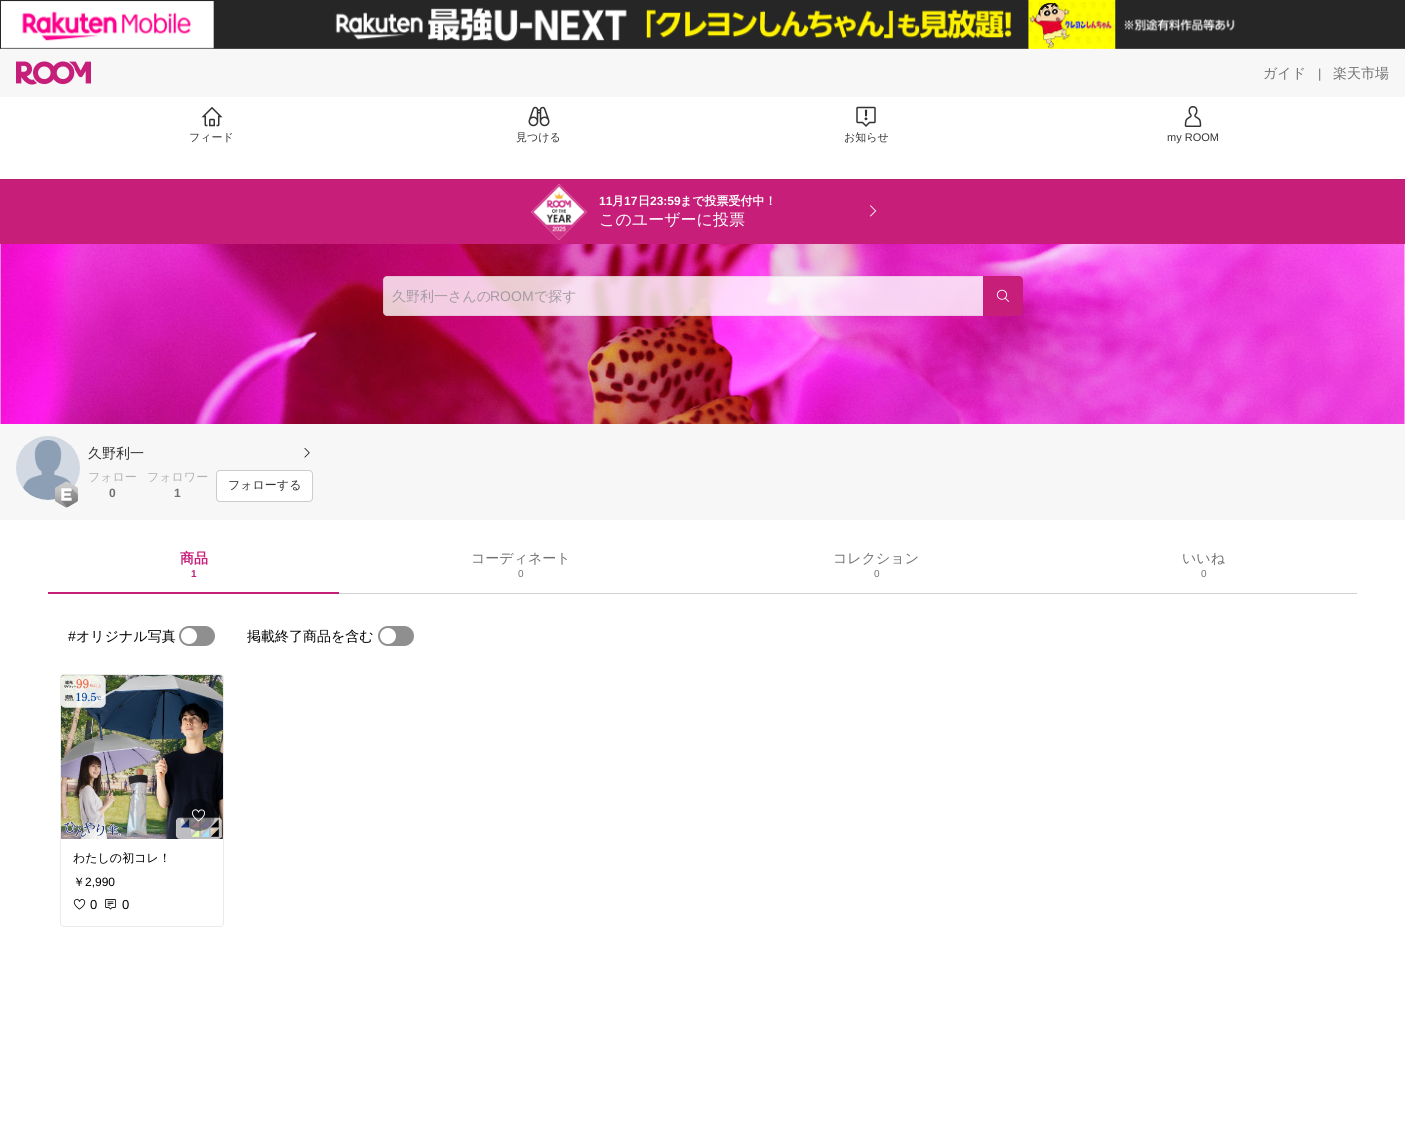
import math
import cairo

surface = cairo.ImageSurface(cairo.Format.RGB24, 1405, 1133)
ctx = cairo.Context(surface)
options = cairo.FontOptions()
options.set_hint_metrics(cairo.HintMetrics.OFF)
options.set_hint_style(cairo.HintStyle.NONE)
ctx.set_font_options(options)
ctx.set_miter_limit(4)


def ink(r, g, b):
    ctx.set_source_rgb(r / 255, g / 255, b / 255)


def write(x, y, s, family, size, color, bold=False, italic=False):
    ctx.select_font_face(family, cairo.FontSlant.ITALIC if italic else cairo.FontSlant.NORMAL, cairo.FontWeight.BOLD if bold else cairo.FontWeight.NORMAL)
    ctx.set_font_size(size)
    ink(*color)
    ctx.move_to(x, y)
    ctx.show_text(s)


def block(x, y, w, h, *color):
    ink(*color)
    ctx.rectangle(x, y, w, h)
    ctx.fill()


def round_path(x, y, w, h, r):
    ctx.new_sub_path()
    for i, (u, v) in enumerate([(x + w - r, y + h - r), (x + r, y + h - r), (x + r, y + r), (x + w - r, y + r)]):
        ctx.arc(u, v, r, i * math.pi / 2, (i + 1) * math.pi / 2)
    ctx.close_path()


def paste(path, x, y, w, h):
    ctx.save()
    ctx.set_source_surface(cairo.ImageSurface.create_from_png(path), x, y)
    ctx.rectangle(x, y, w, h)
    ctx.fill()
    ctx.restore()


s1 = dict(family="WenQuanYi Zen Hei Medium", size=14, color=(113, 113, 113))
s2 = dict(family="Liberation Sans", size=13, color=(113, 113, 113))
s3 = dict(family="WenQuanYi Zen Hei Medium", size=11, color=(51, 51, 51))
s4 = dict(family="Liberation Sans", size=11, color=(51, 51, 51))
s5 = dict(family="Liberation Sans", size=12, color=(255, 255, 255), bold=True)
s6 = dict(family="WenQuanYi Zen Hei", size=12, color=(255, 255, 255), bold=True)
s7 = dict(family="WenQuanYi Zen Hei Medium", size=16, color=(255, 255, 255))
s8 = dict(family="WenQuanYi Zen Hei Medium", size=14, color=(163, 155, 160))
s9 = dict(family="Liberation Sans", size=14, color=(163, 155, 160))
s10 = dict(family="WenQuanYi Zen Hei Medium", size=14, color=(51, 51, 51))
s11 = dict(family="WenQuanYi Zen Hei Medium", size=12, color=(178, 178, 178))
s12 = dict(family="Liberation Sans", size=12, color=(113, 113, 113), bold=True)
s13 = dict(family="WenQuanYi Zen Hei Medium", size=12, color=(51, 51, 51))
s14 = dict(family="WenQuanYi Zen Hei", size=14, color=(198, 30, 121), bold=True)
s15 = dict(family="Liberation Sans", size=10, color=(198, 30, 121), bold=True)
s16 = dict(family="Liberation Sans", size=10, color=(113, 113, 113))
s17 = dict(family="Liberation Sans", size=14, color=(0, 0, 0))
s18 = dict(family="WenQuanYi Zen Hei Medium", size=14, color=(0, 0, 0))
s19 = dict(family="WenQuanYi Zen Hei Medium", size=12, color=(0, 0, 0))
s20 = dict(family="Liberation Sans", size=12, color=(0, 0, 0))
s21 = dict(family="Liberation Sans", size=13, color=(0, 0, 0))

ink(255, 255, 255)
ctx.paint()
paste("pic1.png", 0, 0, 1405, 49)
block(0, 49, 1405, 48, 247, 247, 247)
paste("pic2.png", 16, 61, 75, 24)
write(1263, 78, "ガイド", **s1)
write(1318, 78, "|", **s2)
write(1333, 78, "楽天市場", **s1)
paste("pic3.png", 201, 106, 22, 21)
write(189, 141, "フィード", **s3)
paste("pic4.png", 528, 106, 22, 21)
write(516, 141, "見つける", **s3)
paste("pic5.png", 856, 106, 20, 21)
write(844, 141, "お知らせ", **s3)
paste("pic6.png", 1184, 106, 18, 21)
write(1167, 141, "my ROOM", **s4)
block(0, 180, 1405, 64, 198, 30, 121)
block(0, 179, 1405, 1, 182, 28, 111)
paste("pic7.png", 531, 184, 56, 56)
write(599, 205, "11", **s5)
write(612, 205, "月", **s6)
write(624, 205, "17", **s5)
write(638, 205, "日", **s6)
write(650, 205, "23:59", **s5)
write(680, 205, "まで投票受付中！", **s6)
write(599, 225, "このユーザーに投票", **s7)
paste("pic8.png", 870, 205, 7, 12)
paste("pic9.png", 0, 244, 1405, 180)
ctx.set_source_rgba(1, 1, 1, 0.8)
ctx.new_path()
ctx.move_to(387, 276)
ctx.line_to(983, 276)
ctx.line_to(983, 316)
ctx.line_to(387, 316)
ctx.curve_to(385, 316, 383, 314, 383, 312)
ctx.line_to(383, 280)
ctx.curve_to(383, 278, 385, 276, 387, 276)
ctx.close_path()
ctx.fill()
ctx.set_source_rgba(0, 0, 0, 0.06)
ctx.set_fill_rule(cairo.FillRule.EVEN_ODD)
ctx.new_path()
ctx.move_to(387, 276)
ctx.line_to(983, 276)
ctx.line_to(983, 316)
ctx.line_to(387, 316)
ctx.curve_to(385, 316, 383, 314, 383, 312)
ctx.line_to(383, 280)
ctx.curve_to(383, 278, 385, 276, 387, 276)
ctx.close_path()
ctx.move_to(387, 277)
ctx.line_to(983, 277)
ctx.line_to(983, 315)
ctx.line_to(387, 315)
ctx.curve_to(385, 315, 384, 314, 384, 312)
ctx.line_to(384, 280)
ctx.curve_to(384, 278, 385, 277, 387, 277)
ctx.close_path()
ctx.fill()
write(392, 301, "久野利一さんの", **s8)
write(490, 301, "ROOM", **s9)
write(534, 301, "で探す", **s8)
ink(198, 30, 121)
ctx.new_path()
ctx.move_to(983, 276)
ctx.line_to(1019, 276)
ctx.curve_to(1021, 276, 1023, 278, 1023, 280)
ctx.line_to(1023, 312)
ctx.curve_to(1023, 314, 1021, 316, 1019, 316)
ctx.line_to(983, 316)
ctx.close_path()
ctx.fill()
paste("pic10.png", 996, 289, 14, 13)
block(0, 424, 1405, 96, 247, 247, 247)
paste("pic11.png", 16, 436, 64, 64)
paste("pic12.png", 55, 481, 23, 27)
write(88, 458, "久野利一", **s10)
paste("pic13.png", 304, 448, 6, 10)
write(88, 481, "フォロー", **s11)
write(109, 497, "0", **s12)
write(147, 481, "フォロワー", **s11)
write(174, 497, "1", **s12)
ink(255, 255, 255)
round_path(216, 470, 97, 32, 4)
ctx.fill()
round_path(216.5, 470.5, 96, 31, 3.5)
ctx.set_source_rgba(0, 0, 0, 0.2)
ctx.set_line_width(1)
ctx.stroke()
write(228, 489, "フォローする", **s13)
block(48, 592, 291, 2, 198, 30, 121)
write(180, 563, "商品", **s14)
write(191, 577, "1", **s15)
block(339, 593, 1018, 1, 209, 209, 209)
write(471, 563, "コーディネート", **s1)
write(518, 577, "0", **s16)
write(833, 563, "コレクション", **s1)
write(874, 577, "0", **s16)
write(1182, 563, "いいね", **s1)
write(1201, 577, "0", **s16)
write(68, 641, "#", **s17)
write(76, 641, "オリジナル写真", **s18)
ink(143, 143, 143)
round_path(180, 627, 34, 18, 9)
ctx.fill_preserve()
ctx.set_line_width(2)
ctx.stroke()
ink(255, 255, 255)
ctx.arc(189, 636, 8, 0, 2 * math.pi)
ctx.fill()
write(247, 641, "掲載終了商品を含む", **s18)
ink(143, 143, 143)
round_path(379, 627, 34, 18, 9)
ctx.fill_preserve()
ctx.stroke()
ink(255, 255, 255)
ctx.arc(388, 636, 8, 0, 2 * math.pi)
ctx.fill()
round_path(60.5, 674.5, 163, 252, 3.5)
ink(235, 235, 235)
ctx.set_line_width(1)
ctx.stroke()
paste("pic14.png", 61, 675, 162, 164)
ctx.set_source_rgba(0, 0, 0, 0.4)
ctx.arc(199, 815, 16, 0, 2 * math.pi)
ctx.fill()
paste("pic15.png", 192, 809, 13, 13)
write(73, 862, "わたしの初コレ！", **s19)
write(73, 886, "￥", **s19)
write(85, 886, "2,990", **s20)
paste("pic16.png", 73, 899, 13, 11)
write(90, 909, "0", **s21)
paste("pic17.png", 105, 899, 11, 11)
write(122, 909, "0", **s21)
surface.write_to_png("screenshot.png")
